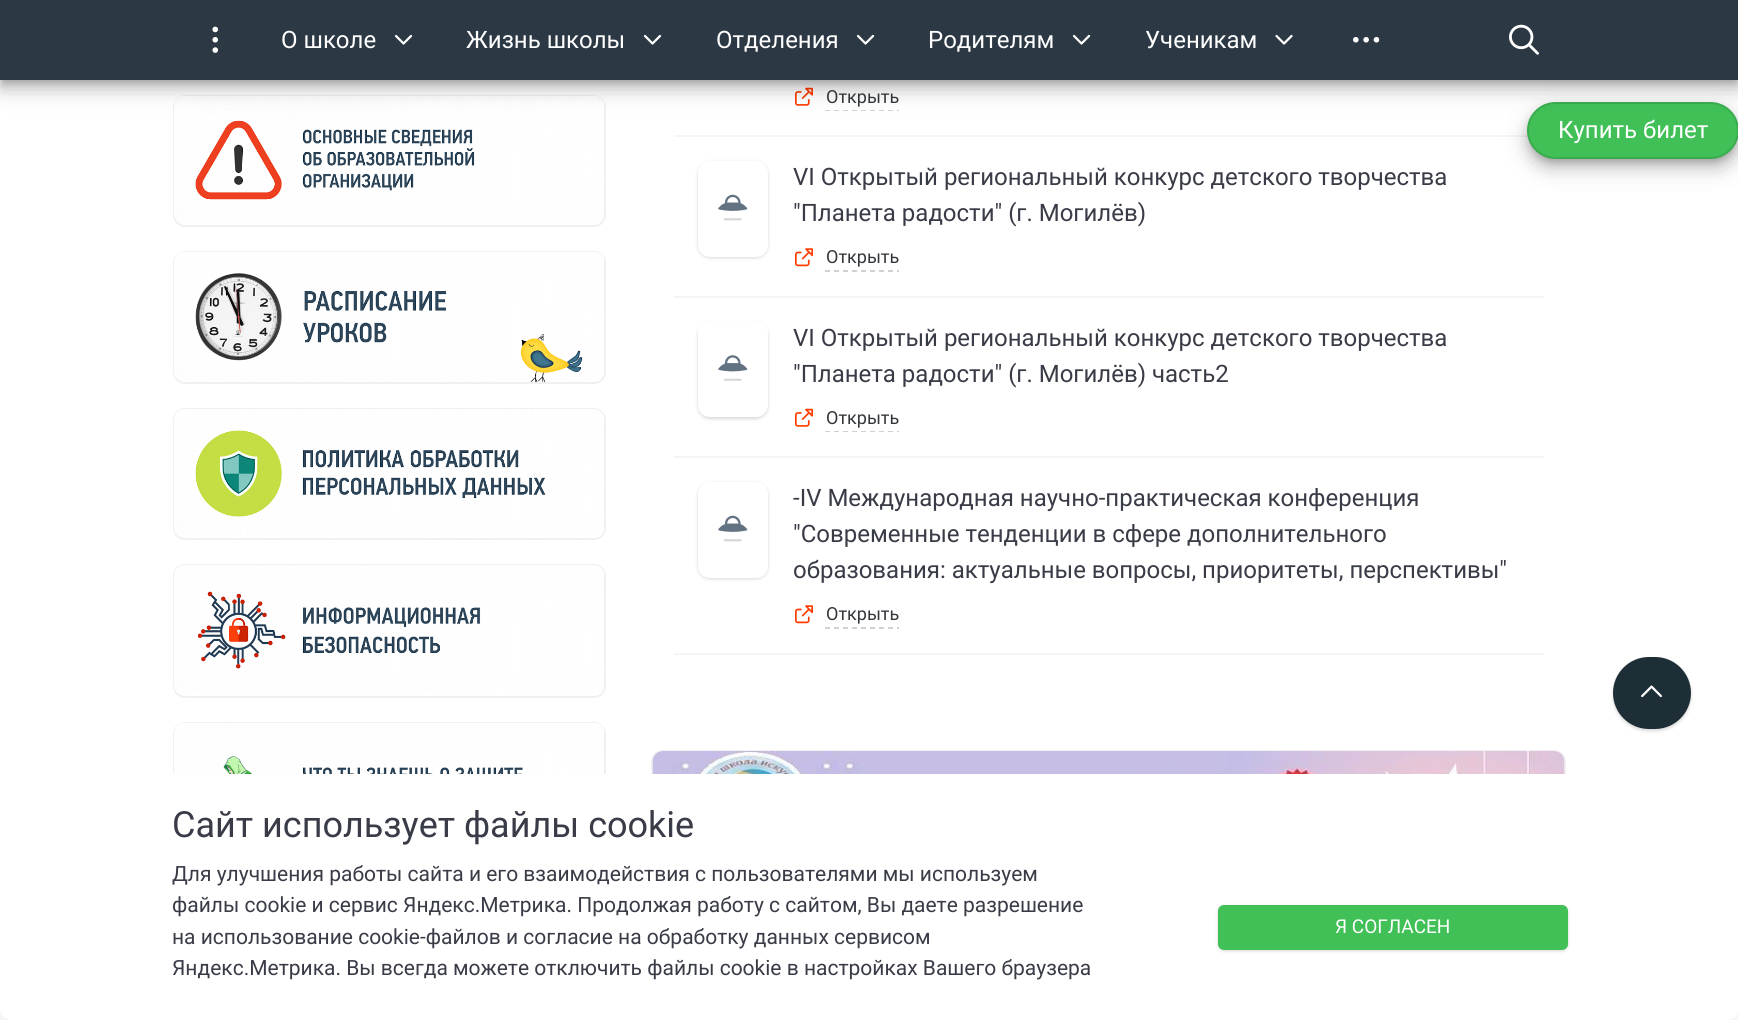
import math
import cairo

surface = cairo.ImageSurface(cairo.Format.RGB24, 1738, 1020)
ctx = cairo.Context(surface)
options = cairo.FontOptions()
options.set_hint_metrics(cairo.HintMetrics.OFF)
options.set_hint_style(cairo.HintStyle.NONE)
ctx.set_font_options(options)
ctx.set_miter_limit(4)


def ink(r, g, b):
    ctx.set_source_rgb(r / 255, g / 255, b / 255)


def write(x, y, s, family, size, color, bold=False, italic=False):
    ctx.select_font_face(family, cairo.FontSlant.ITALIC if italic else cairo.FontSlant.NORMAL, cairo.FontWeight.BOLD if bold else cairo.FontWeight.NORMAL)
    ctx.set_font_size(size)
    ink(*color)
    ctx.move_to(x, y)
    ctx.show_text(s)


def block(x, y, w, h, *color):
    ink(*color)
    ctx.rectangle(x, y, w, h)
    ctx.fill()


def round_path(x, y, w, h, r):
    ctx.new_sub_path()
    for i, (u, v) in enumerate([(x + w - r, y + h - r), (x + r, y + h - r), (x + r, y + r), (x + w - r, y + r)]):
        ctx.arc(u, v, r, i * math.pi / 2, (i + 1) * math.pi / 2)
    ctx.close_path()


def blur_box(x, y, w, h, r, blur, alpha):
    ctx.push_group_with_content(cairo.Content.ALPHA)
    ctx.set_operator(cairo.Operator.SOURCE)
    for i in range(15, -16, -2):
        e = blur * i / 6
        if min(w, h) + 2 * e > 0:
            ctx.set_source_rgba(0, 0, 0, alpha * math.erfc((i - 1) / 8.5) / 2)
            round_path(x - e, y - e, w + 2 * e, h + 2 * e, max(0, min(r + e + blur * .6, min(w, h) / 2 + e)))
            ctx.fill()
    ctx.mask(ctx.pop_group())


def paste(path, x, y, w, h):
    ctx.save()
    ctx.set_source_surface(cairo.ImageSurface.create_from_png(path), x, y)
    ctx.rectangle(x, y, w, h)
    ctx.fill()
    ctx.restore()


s1 = dict(family="Roboto", size=24, color=(255, 255, 255))
s2 = dict(family="Roboto", size=18, color=(51, 55, 59))
s3 = dict(family="Roboto", size=24, color=(57, 60, 71))
s4 = dict(family="Roboto", size=36, color=(57, 60, 71))
s5 = dict(family="Roboto", size=21, color=(57, 60, 71))
s6 = dict(family="Roboto", size=19, color=(255, 255, 255))

ink(255, 255, 255)
ctx.paint()
round_path(174, 96, 431, 130, 11)
ink(240, 240, 240)
ctx.stroke()
paste("pic6.png", 174, 96, 430, 126)
paste("pic11.png", 795, 87, 18, 19)
block(825, 110, 5, 1, 208, 209, 210)
block(834, 110, 5, 1, 208, 209, 210)
block(843, 110, 5, 1, 208, 209, 210)
block(852, 110, 5, 1, 208, 209, 210)
block(861, 110, 5, 1, 208, 209, 210)
block(870, 110, 5, 1, 208, 209, 210)
block(879, 110, 5, 1, 208, 209, 210)
block(888, 110, 5, 1, 208, 209, 210)
block(897, 110, 2, 1, 208, 209, 210)
block(674, 135, 854, 2, 245, 245, 245)
ink(0, 0, 0)
blur_box(1527, 111, 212, 57, 28.5, 13.5, 0.12)
blur_box(1527, 111, 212, 57, 28.5, 7.5, 0.14)
blur_box(1529, 108, 208, 54, 27, 4, 0.2)
ink(64, 192, 87)
round_path(1528, 103, 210, 55, 27.5)
ctx.fill_preserve()
ink(57, 173, 78)
ctx.stroke()
ink(0, 0, 0)
blur_box(0, 9, 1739, 80, 0, 13.5, 0.12)
blur_box(0, 9, 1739, 80, 0, 7.5, 0.14)
blur_box(2, 6, 1735, 77, 0, 4, 0.2)
block(0, 0, 1738, 80, 44, 57, 68)
paste("pic1.png", 212, 26, 6, 27)
write(281, 48, "О школе", **s1)
paste("pic2.png", 394, 34, 19, 11)
write(466, 48, "Жизнь школы", **s1)
paste("pic2.png", 643, 34, 19, 11)
write(716, 48, "Отделения", **s1)
paste("pic2.png", 856, 34, 19, 11)
write(928, 48, "Родителям", **s1)
paste("pic2.png", 1072, 34, 19, 11)
write(1145, 48, "Ученикам", **s1)
paste("pic3.png", 1275, 34, 18, 11)
paste("pic4.png", 1353, 37, 27, 6)
paste("pic5.png", 1509, 24, 30, 31)
round_path(174, 252, 431, 131, 11)
ink(240, 240, 240)
ctx.stroke()
paste("pic7.png", 174, 252, 430, 130)
round_path(174, 409, 431, 130, 11)
ctx.stroke()
paste("pic8.png", 174, 409, 430, 128)
round_path(174, 565, 431, 132, 11)
ctx.stroke()
paste("pic9.png", 174, 565, 430, 128)
round_path(174, 723, 431, 130, 11)
ctx.stroke()
paste("pic10.png", 174, 723, 430, 51)
write(826, 103, "Открыть", **s2)
block(674, 296, 870, 2, 245, 245, 245)
ink(0, 0, 0)
blur_box(698, 162, 70, 96, 12, 1.5, 0.06)
blur_box(698, 162, 70, 96, 12, 2, 0.1)
ink(255, 255, 255)
round_path(698, 161, 70, 96, 12)
ctx.fill()
paste("pic12.png", 718, 194, 30, 27)
write(793, 185, "VI Открытый региональный конкурс детского творчества", **s3)
write(793, 221, "\"Планета радости\" (г. Могилёв)", **s3)
paste("pic13.png", 795, 248, 18, 19)
write(826, 263, "Открыть", **s2)
block(825, 270, 5, 2, 208, 209, 210)
block(834, 270, 5, 2, 208, 209, 210)
block(843, 270, 5, 2, 208, 209, 210)
block(852, 270, 5, 2, 208, 209, 210)
block(861, 270, 5, 2, 208, 209, 210)
block(870, 270, 5, 2, 208, 209, 210)
block(879, 270, 5, 2, 208, 209, 210)
block(888, 270, 5, 2, 208, 209, 210)
block(897, 270, 2, 2, 208, 209, 210)
block(674, 456, 870, 2, 245, 245, 245)
ink(0, 0, 0)
blur_box(698, 323, 70, 96, 12, 1.5, 0.06)
blur_box(698, 323, 70, 96, 12, 2, 0.1)
ink(255, 255, 255)
round_path(698, 321, 70, 96, 12)
ctx.fill()
paste("pic14.png", 718, 355, 30, 26)
write(793, 346, "VI Открытый региональный конкурс детского творчества", **s3)
write(793, 382, "\"Планета радости\" (г. Могилёв) часть2", **s3)
paste("pic11.png", 795, 408, 18, 19)
write(826, 424, "Открыть", **s2)
block(825, 431, 5, 1, 208, 209, 210)
block(834, 431, 5, 1, 208, 209, 210)
block(843, 431, 5, 1, 208, 209, 210)
block(852, 431, 5, 1, 208, 209, 210)
block(861, 431, 5, 1, 208, 209, 210)
block(870, 431, 5, 1, 208, 209, 210)
block(879, 431, 5, 1, 208, 209, 210)
block(888, 431, 5, 1, 208, 209, 210)
block(897, 431, 2, 1, 208, 209, 210)
block(674, 653, 870, 2, 245, 245, 245)
ink(0, 0, 0)
blur_box(698, 483, 70, 96, 12, 1.5, 0.06)
blur_box(698, 483, 70, 96, 12, 2, 0.1)
ink(255, 255, 255)
round_path(698, 482, 70, 96, 12)
ctx.fill()
paste("pic12.png", 718, 515, 30, 27)
write(793, 506, "-IV Международная научно-практическая конференция", **s3)
write(793, 542, "\"Современные тенденции в сфере дополнительного", **s3)
write(793, 578, "образования: актуальные вопросы, приоритеты, перспективы\"", **s3)
paste("pic13.png", 795, 605, 18, 19)
write(826, 620, "Открыть", **s2)
block(825, 627, 5, 2, 208, 209, 210)
block(834, 627, 5, 2, 208, 209, 210)
block(843, 627, 5, 2, 208, 209, 210)
block(852, 627, 5, 2, 208, 209, 210)
block(861, 627, 5, 2, 208, 209, 210)
block(870, 627, 5, 2, 208, 209, 210)
block(879, 627, 5, 2, 208, 209, 210)
block(888, 627, 5, 2, 208, 209, 210)
block(897, 627, 2, 2, 208, 209, 210)
round_path(652, 751, 913, 190, 11)
ink(240, 240, 240)
ctx.stroke()
paste("pic15.png", 652, 751, 913, 23)
write(1558, 138, "Купить билет", **s1)
ink(0, 0, 0)
blur_box(1613, 659, 78, 72, 36, 1.5, 0.06)
blur_box(1613, 659, 78, 72, 36, 2, 0.1)
ink(30, 46, 54)
round_path(1613, 657, 78, 72, 36)
ctx.fill()
paste("pic16.png", 1641, 685, 21, 13)
ink(0, 0, 0)
blur_box(8, 812, 1723, 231, 5, 19, 0.1)
ink(255, 255, 255)
round_path(0, 774, 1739, 246, 12)
ctx.fill()
write(172, 837, "Сайт использует файлы cookie", **s4)
write(172, 881, "Для улучшения работы сайта и его взаимодействия с пользователями мы используем", **s5)
write(172, 912, "файлы cookie и сервис Яндекс.Метрика. Продолжая работу с сайтом, Вы даете разрешение", **s5)
write(172, 944, "на использование cookie-файлов и согласие на обработку данных сервисом", **s5)
write(172, 975, "Яндекс.Метрика. Вы всегда можете отключить файлы cookie в настройках Вашего браузера", **s5)
ink(0, 0, 0)
blur_box(1218, 906, 350, 45, 6, 1.5, 0.06)
blur_box(1218, 906, 350, 45, 6, 2, 0.1)
ink(64, 192, 87)
round_path(1218, 905, 350, 45, 6)
ctx.fill()
write(1335, 933, "Я СОГЛАСЕН", **s6)
surface.write_to_png("screenshot.png")
